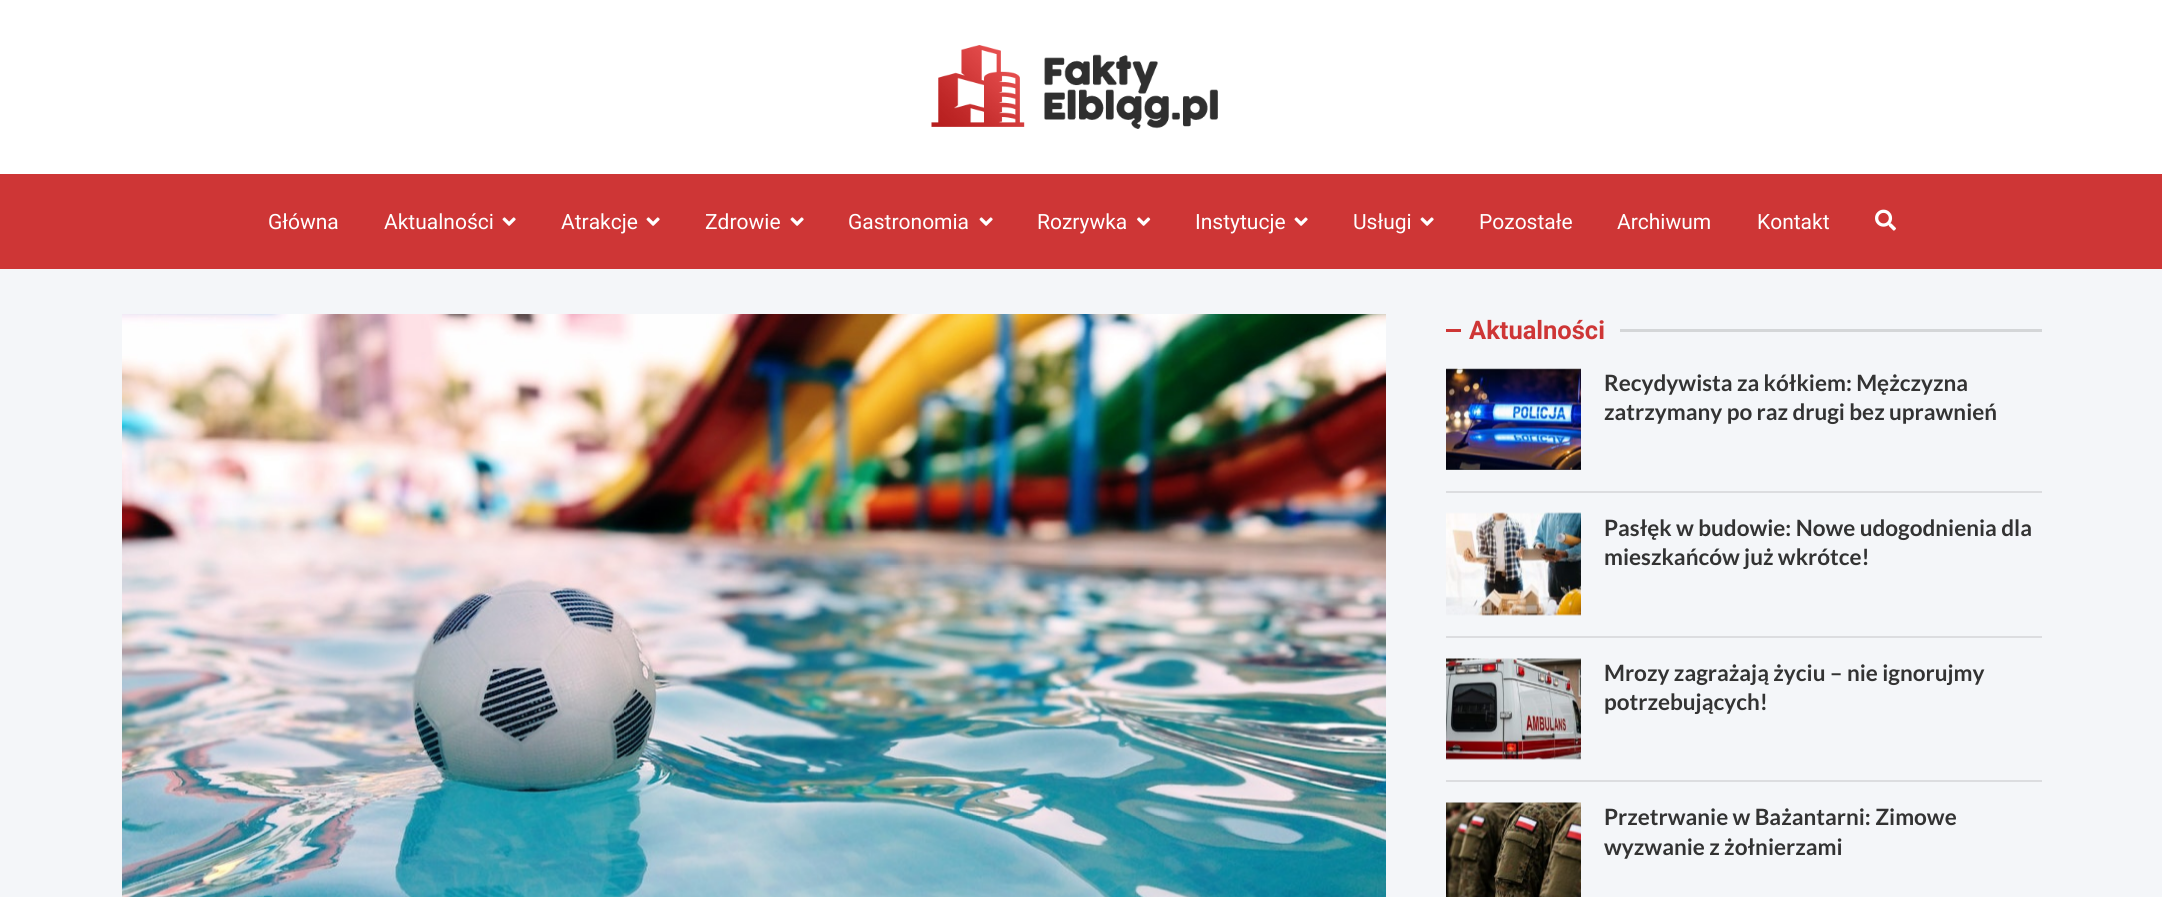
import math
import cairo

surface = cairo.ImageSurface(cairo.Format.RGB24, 2162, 897)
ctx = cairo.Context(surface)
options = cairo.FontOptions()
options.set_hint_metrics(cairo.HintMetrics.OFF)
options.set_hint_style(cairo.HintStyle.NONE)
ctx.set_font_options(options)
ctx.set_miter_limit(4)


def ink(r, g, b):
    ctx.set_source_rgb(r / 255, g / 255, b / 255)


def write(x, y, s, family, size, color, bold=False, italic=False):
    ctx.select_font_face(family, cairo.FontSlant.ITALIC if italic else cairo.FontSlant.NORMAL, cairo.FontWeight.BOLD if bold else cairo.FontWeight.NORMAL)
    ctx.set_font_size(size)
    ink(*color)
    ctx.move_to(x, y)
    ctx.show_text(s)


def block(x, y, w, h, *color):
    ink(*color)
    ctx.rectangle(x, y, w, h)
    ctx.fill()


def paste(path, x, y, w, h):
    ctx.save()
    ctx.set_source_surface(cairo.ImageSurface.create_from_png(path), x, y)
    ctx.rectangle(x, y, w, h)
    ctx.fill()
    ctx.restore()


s1 = dict(family="Roboto", size=21, color=(255, 255, 255))
s2 = dict(family="Roboto", size=25.5, color=(206, 54, 54), bold=True)
s3 = dict(family="Lato", size=22.5, color=(51, 51, 51), bold=True)

ink(244, 246, 249)
ctx.paint()
block(0, 0, 2162, 174, 255, 255, 255)
paste("pic1.png", 931, 45, 287, 84)
block(0, 174, 2162, 95, 206, 54, 54)
write(268, 229, "Główna", **s1)
write(384, 229, "Aktualności", **s1)
paste("pic2.png", 502, 217, 14, 9)
write(561, 229, "Atrakcje", **s1)
paste("pic2.png", 646, 217, 14, 9)
write(705, 229, "Zdrowie", **s1)
paste("pic2.png", 790, 217, 14, 9)
write(848, 229, "Gastronomia", **s1)
paste("pic2.png", 979, 217, 14, 9)
write(1037, 229, "Rozrywka", **s1)
paste("pic3.png", 1137, 217, 14, 9)
write(1195, 229, "Instytucje", **s1)
paste("pic2.png", 1294, 217, 14, 9)
write(1353, 229, "Usługi", **s1)
paste("pic2.png", 1420, 217, 14, 9)
write(1479, 229, "Pozostałe", **s1)
write(1617, 229, "Archiwum", **s1)
write(1757, 229, "Kontakt", **s1)
paste("pic4.png", 1875, 209, 21, 22)
paste("pic5.png", 122, 314, 1264, 583)
block(1446, 329, 15, 3, 206, 54, 54)
write(1469, 339, "Aktualności", **s2)
block(1620, 329, 422, 3, 212, 214, 216)
block(1446, 369, 135, 101, 85, 85, 85)
paste("pic6.png", 1446, 368, 135, 102)
write(1604, 391, "Recydywista za kółkiem: Mężczyzna", **s3)
write(1604, 420, "zatrzymany po raz drugi bez uprawnień", **s3)
block(1446, 491, 596, 2, 220, 221, 224)
paste("pic7.png", 1446, 512, 135, 104)
write(1604, 536, "Pasłęk w budowie: Nowe udogodnienia dla", **s3)
write(1604, 565, "mieszkańców już wkrótce!", **s3)
block(1446, 636, 596, 2, 220, 221, 224)
paste("pic8.png", 1446, 658, 135, 102)
write(1604, 681, "Mrozy zagrażają życiu – nie ignorujmy", **s3)
write(1604, 710, "potrzebujących!", **s3)
block(1446, 780, 596, 2, 220, 221, 224)
paste("pic9.png", 1446, 802, 135, 95)
write(1604, 825, "Przetrwanie w Bażantarni: Zimowe", **s3)
write(1604, 855, "wyzwanie z żołnierzami", **s3)
surface.write_to_png("screenshot.png")
